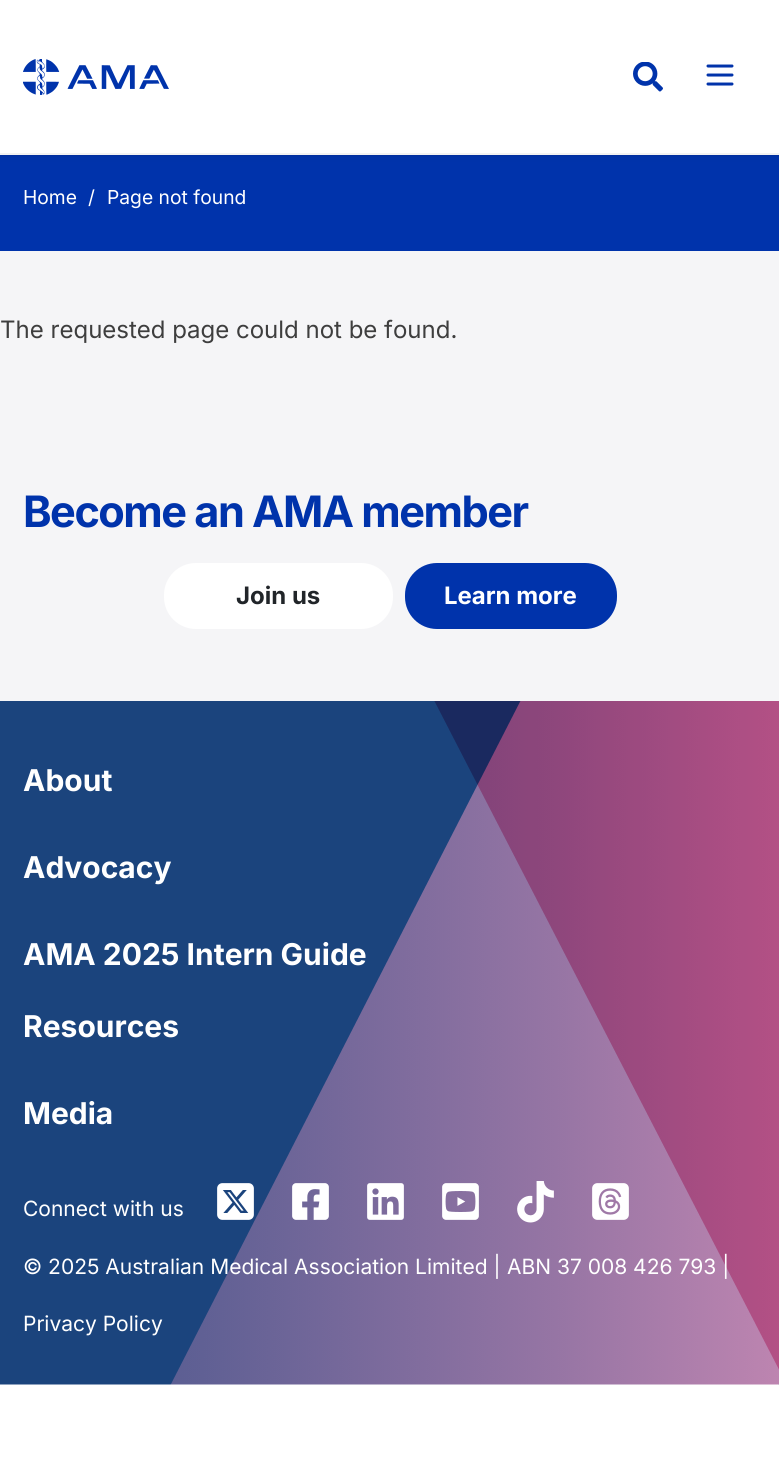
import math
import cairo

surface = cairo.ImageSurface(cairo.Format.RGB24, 779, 1462)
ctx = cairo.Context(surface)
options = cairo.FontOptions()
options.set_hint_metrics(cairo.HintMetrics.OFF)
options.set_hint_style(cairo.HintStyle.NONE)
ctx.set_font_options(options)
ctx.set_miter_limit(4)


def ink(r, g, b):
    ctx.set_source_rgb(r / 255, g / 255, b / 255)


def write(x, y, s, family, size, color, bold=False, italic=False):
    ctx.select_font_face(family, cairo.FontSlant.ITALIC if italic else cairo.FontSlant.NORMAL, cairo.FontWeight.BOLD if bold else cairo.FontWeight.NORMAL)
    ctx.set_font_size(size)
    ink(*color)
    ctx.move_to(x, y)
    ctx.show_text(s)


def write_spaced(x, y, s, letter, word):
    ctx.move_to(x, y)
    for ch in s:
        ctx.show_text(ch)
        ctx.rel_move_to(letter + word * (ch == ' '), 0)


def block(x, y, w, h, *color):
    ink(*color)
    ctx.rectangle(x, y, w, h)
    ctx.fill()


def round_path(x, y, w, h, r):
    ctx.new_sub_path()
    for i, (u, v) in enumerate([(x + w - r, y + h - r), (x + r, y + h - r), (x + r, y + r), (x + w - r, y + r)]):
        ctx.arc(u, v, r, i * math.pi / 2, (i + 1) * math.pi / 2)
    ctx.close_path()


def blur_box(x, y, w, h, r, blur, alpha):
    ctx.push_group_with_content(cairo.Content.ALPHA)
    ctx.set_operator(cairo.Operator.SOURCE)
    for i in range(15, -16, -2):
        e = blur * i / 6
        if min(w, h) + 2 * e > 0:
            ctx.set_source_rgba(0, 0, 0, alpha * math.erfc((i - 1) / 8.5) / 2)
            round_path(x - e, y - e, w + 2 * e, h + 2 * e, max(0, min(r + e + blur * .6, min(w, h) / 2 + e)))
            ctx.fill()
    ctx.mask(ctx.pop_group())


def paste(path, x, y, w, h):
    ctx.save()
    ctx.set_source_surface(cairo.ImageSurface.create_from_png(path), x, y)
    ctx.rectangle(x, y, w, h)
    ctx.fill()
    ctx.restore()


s1 = dict(family="Inter", size=19.25, color=(255, 255, 255))
s2 = dict(family="Inter", size=24, color=(62, 62, 62))
s3 = dict(family="Inter", size=24, color=(33, 37, 41), bold=True)
s4 = dict(family="Inter", size=24, color=(255, 255, 255), bold=True)
s5 = dict(family="Inter", size=30, color=(255, 255, 255), bold=True)
s6 = dict(family="Inter", size=21, color=(255, 255, 255))

ink(255, 255, 255)
ctx.paint()
block(0, 155, 779, 96, 0, 51, 171)
ink(0, 0, 0)
blur_box(0, 0, 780, 155, 0, 1, 0.1)
blur_box(0, 0, 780, 155, 0, 4, 0.1)
block(0, 0, 779, 153, 255, 255, 255)
block(0, 153, 779, 2, 242, 242, 242)
paste("pic1.png", 23, 59, 146, 36)
paste("pic2.png", 633, 62, 30, 30)
ctx.new_path()
ctx.move_to(708, 75)
ctx.line_to(732, 75)
ctx.move_to(708, 66)
ctx.line_to(732, 66)
ctx.move_to(708, 84)
ctx.line_to(732, 84)
ink(1, 51, 170)
ctx.set_line_width(3)
ctx.set_line_cap(cairo.LineCap.ROUND)
ctx.set_line_join(cairo.LineJoin.ROUND)
ctx.stroke()
write(23, 204, "Home", **s1)
write(88, 204, "/", **s1)
write(107, 204, "Page not found", **s1)
block(0, 251, 779, 450, 245, 245, 247)
write(0, 338, "The requested page could not be found.", **s2)
paste("pic3.png", 0, 701, 779, 684)
ctx.select_font_face("Inter", cairo.FontSlant.NORMAL, cairo.FontWeight.BOLD)
ctx.set_font_size(43.25)
ink(0, 51, 171)
write_spaced(23, 527, "Become an AMA member", -1.5, 0)
ink(255, 255, 255)
round_path(164, 563, 229, 66, 32)
ctx.fill()
write(236, 604, "Join us", **s3)
ink(0, 51, 171)
round_path(405, 563, 212, 66, 32)
ctx.fill()
write(444, 604, "Learn more", **s4)
write(23, 791, "About", **s5)
write(23, 878, "Advocacy", **s5)
write(23, 965, "AMA 2025 Intern Guide", **s5)
write(23, 1037, "Resources", **s5)
write(23, 1124, "Media", **s5)
write(23, 1216, "Connect with us", **s6)
paste("pic4.png", 217, 1183, 37, 37)
paste("pic5.png", 292, 1183, 37, 37)
paste("pic6.png", 367, 1183, 37, 37)
paste("pic7.png", 442, 1183, 37, 37)
paste("pic8.png", 517, 1181, 37, 42)
paste("pic9.png", 592, 1183, 37, 37)
write(23, 1274, "© 2025 Australian Medical Association Limited |", **s6)
write(507, 1274, "ABN 37 008 426 793 |", **s6)
write(23, 1331, "Privacy Policy", **s6)
surface.write_to_png("screenshot.png")
